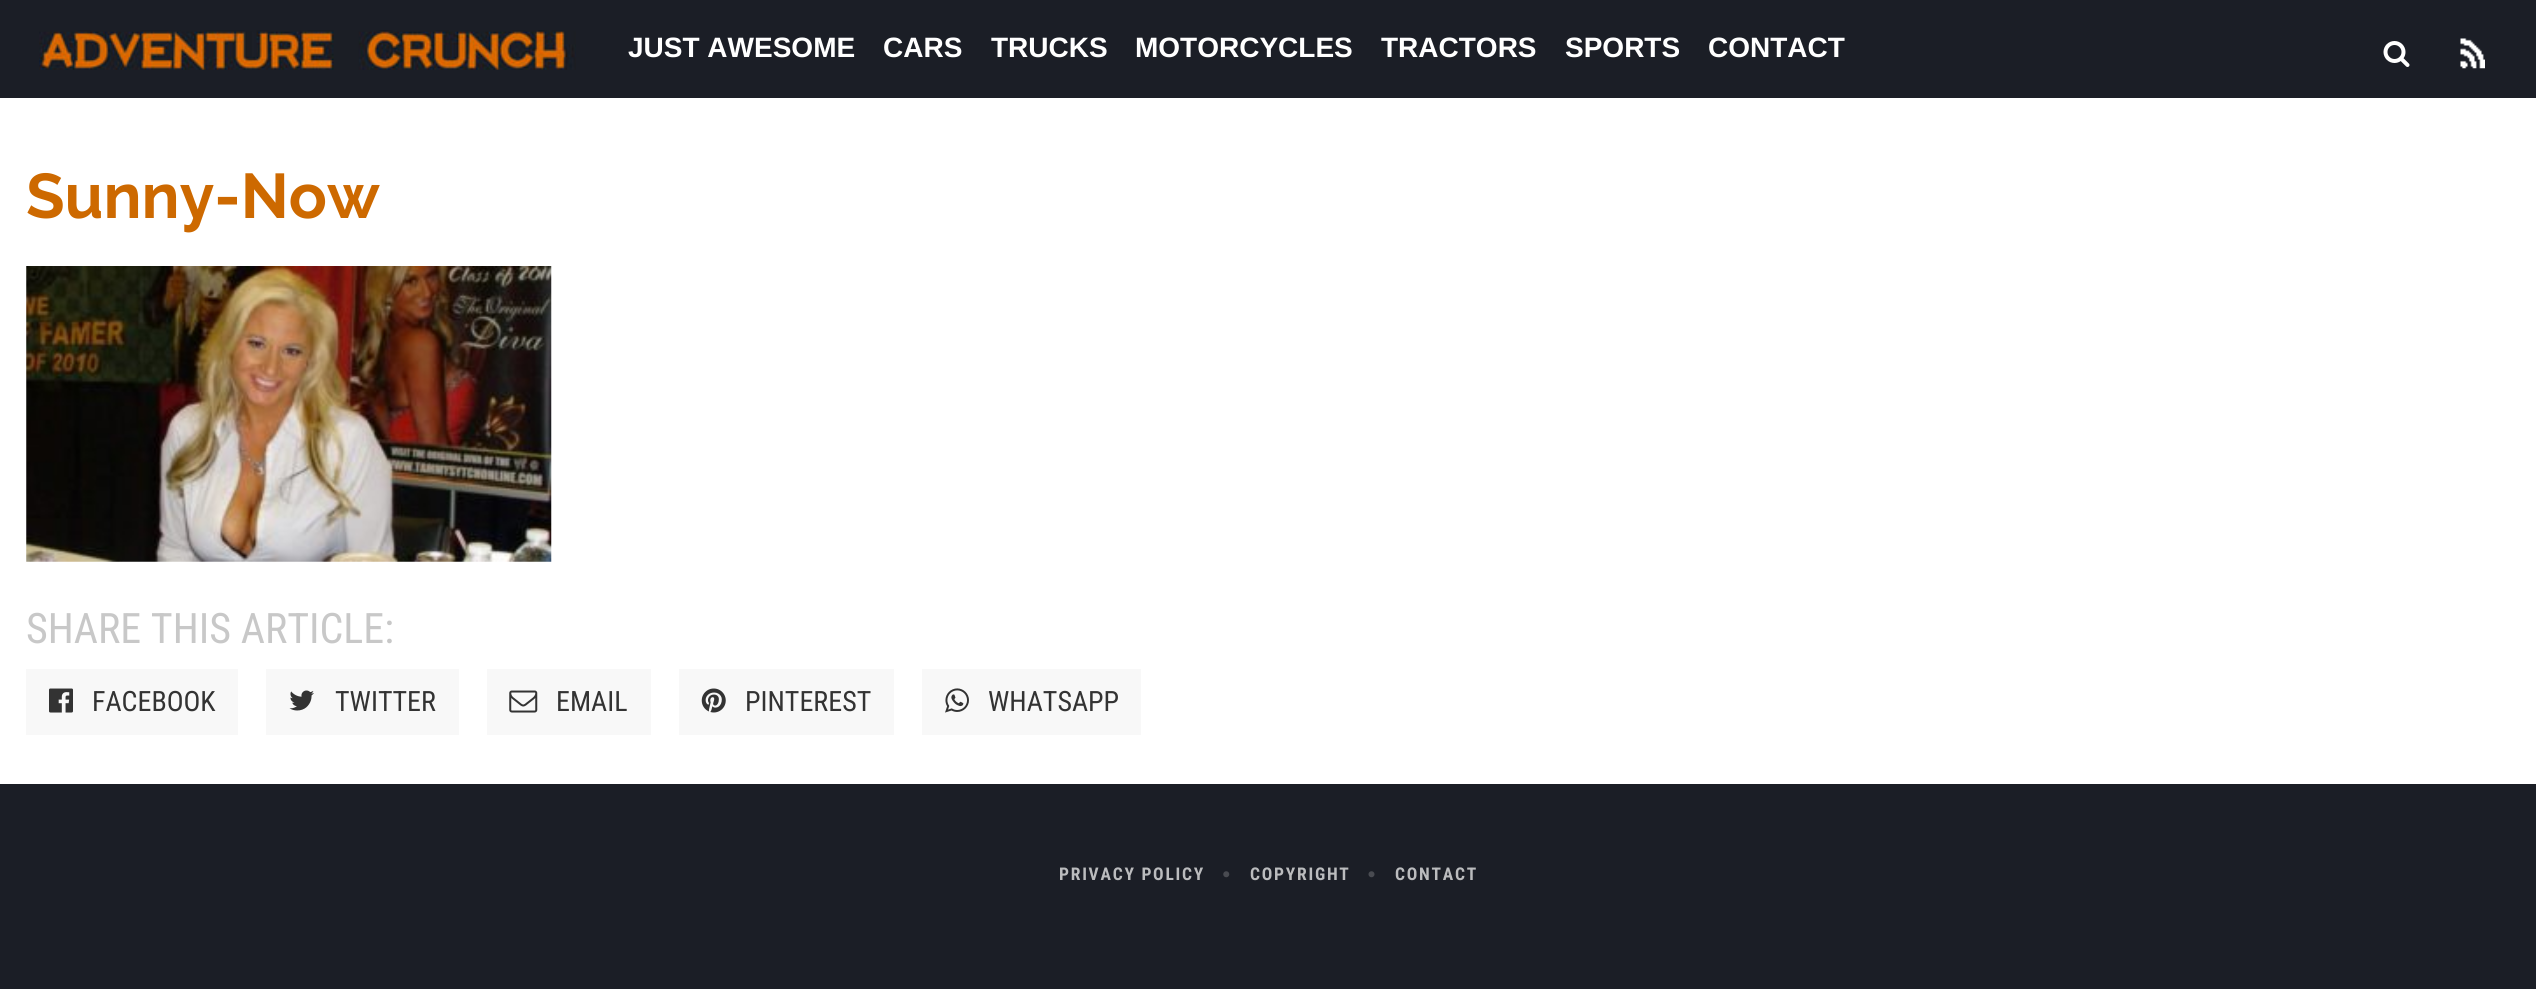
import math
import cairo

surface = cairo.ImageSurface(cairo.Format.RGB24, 2536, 989)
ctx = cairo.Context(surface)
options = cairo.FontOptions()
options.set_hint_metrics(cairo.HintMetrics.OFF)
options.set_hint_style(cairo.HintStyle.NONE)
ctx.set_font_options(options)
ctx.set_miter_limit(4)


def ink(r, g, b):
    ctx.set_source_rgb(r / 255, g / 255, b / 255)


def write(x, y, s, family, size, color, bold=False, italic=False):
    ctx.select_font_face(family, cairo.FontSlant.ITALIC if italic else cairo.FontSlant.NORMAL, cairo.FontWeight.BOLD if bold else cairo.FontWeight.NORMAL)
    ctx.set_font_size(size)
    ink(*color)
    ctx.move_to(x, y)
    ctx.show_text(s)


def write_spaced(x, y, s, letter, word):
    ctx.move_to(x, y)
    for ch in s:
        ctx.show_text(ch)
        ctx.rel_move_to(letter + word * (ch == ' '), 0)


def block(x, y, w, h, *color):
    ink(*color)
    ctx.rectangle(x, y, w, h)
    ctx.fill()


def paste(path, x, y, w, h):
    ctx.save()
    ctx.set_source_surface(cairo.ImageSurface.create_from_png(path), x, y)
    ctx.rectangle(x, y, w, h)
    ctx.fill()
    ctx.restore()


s1 = dict(family="Liberation Sans", size=28, color=(255, 255, 255), bold=True)
s2 = dict(family="Raleway", size=63, color=(205, 105, 0), bold=True)
s3 = dict(family="Roboto Condensed", size=42, color=(200, 200, 200))
s4 = dict(family="Roboto Condensed", size=28, color=(51, 51, 51))

ink(255, 255, 255)
ctx.paint()
block(0, 0, 2536, 98, 27, 30, 38)
paste("pic1.png", 39, 30, 537, 40)
write(628, 57, "JUST AWESOME", **s1)
write(883, 57, "CARS", **s1)
write(991, 57, "TRUCKS", **s1)
write(1135, 57, "MOTORCYCLES", **s1)
write(1381, 57, "TRACTORS", **s1)
write(1565, 57, "SPORTS", **s1)
write(1708, 57, "CONTACT", **s1)
paste("pic2.png", 2383, 41, 27, 26)
paste("pic3.png", 2460, 38, 25, 31)
write(26, 218, "Sunny-Now", **s2)
paste("pic4.png", 26, 266, 526, 296)
write(26, 643, "SHARE THIS ARTICLE:", **s3)
block(26, 669, 212, 66, 248, 248, 248)
paste("pic5.png", 49, 688, 24, 25)
write(92, 711, "FACEBOOK", **s4)
block(266, 669, 193, 66, 248, 248, 248)
paste("pic6.png", 289, 690, 25, 21)
write(335, 711, "TWITTER", **s4)
block(487, 669, 164, 66, 248, 248, 248)
paste("pic7.png", 509, 690, 29, 23)
write(556, 711, "EMAIL", **s4)
block(679, 669, 215, 66, 248, 248, 248)
paste("pic8.png", 701, 688, 25, 25)
write(745, 711, "PINTEREST", **s4)
block(922, 669, 219, 66, 248, 248, 248)
paste("pic9.png", 945, 688, 24, 25)
write(988, 711, "WHATSAPP", **s4)
block(0, 784, 2536, 205, 27, 30, 38)
ctx.select_font_face("Roboto Condensed", cairo.FontSlant.NORMAL, cairo.FontWeight.BOLD)
ctx.set_font_size(17.5)
ink(187, 188, 190)
write_spaced(1059, 880, "PRIVACY POLICY", 1.75, 0)
paste("pic10.png", 1223, 871, 7, 7)
write_spaced(1250, 880, "COPYRIGHT", 1.75, 0)
paste("pic11.png", 1368, 871, 7, 7)
write_spaced(1395, 880, "CONTACT", 1.75, 0)
surface.write_to_png("screenshot.png")
